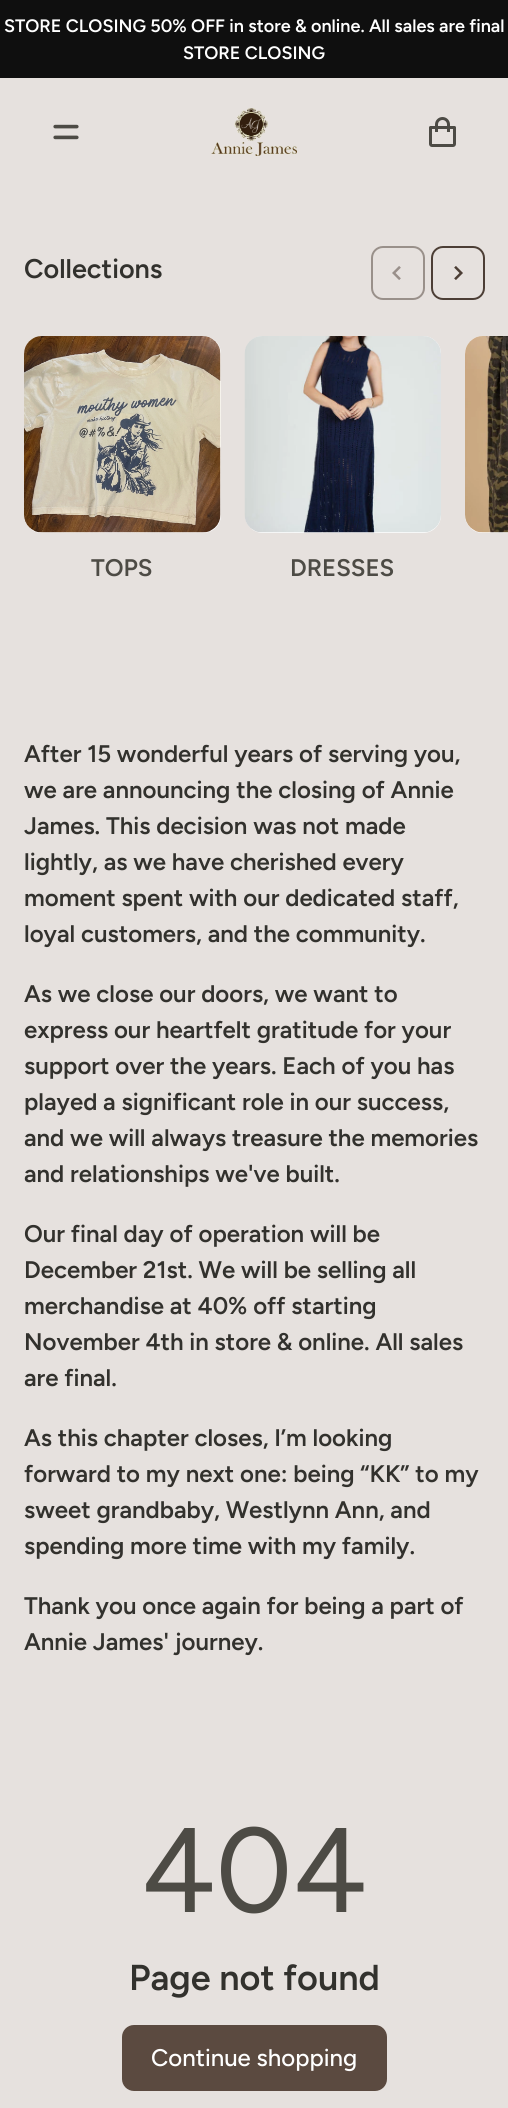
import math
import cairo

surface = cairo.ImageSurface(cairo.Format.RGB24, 508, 2108)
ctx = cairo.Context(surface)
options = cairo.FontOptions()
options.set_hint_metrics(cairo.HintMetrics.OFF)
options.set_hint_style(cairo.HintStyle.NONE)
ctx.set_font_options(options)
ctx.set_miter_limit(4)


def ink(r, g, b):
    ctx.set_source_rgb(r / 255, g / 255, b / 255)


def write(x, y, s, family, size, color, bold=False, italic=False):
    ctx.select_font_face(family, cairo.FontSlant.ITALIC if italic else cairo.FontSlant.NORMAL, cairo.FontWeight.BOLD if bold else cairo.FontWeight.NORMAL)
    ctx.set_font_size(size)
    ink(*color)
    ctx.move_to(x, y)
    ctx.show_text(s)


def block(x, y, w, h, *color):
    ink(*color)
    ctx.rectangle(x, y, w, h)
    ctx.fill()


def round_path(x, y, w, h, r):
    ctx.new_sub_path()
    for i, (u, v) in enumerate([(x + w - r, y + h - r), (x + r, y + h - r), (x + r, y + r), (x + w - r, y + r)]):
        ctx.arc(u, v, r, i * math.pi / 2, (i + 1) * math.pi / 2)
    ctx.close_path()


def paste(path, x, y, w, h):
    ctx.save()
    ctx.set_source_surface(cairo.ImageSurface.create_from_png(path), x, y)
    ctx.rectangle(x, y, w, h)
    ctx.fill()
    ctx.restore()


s1 = dict(family="Figtree SemiBold", size=18, color=(255, 255, 255))
s2 = dict(family="Figtree SemiBold", size=27, color=(50, 49, 45))
s3 = dict(family="Figtree SemiBold", size=24, color=(77, 75, 69))
s4 = dict(family="Figtree SemiBold", size=24, color=(50, 49, 45))
s5 = dict(family="Figtree", size=120, color=(77, 75, 69))
s6 = dict(family="Figtree SemiBold", size=36, color=(50, 49, 45))
s7 = dict(family="Figtree Medium", size=24, color=(255, 255, 255))

ink(230, 225, 222)
ctx.paint()
block(0, 0, 508, 78, 15, 15, 15)
write(4, 32, "STORE CLOSING 50% OFF in store & online. All sales are final", **s1)
write(183, 59, "STORE CLOSING", **s1)
paste("pic1.png", 53, 124, 26, 16)
paste("pic2.png", 211, 108, 86, 48)
paste("pic3.png", 429, 117, 27, 30)
write(24, 278, "Collections", **s2)
round_path(372, 247, 52, 52, 11)
ink(153, 144, 138)
ctx.stroke()
paste("pic4.png", 392, 266, 9, 14)
round_path(432, 247, 52, 52, 11)
ink(76, 62, 53)
ctx.stroke()
paste("pic5.png", 454, 266, 9, 14)
ink(255, 255, 255)
ctx.new_path()
ctx.move_to(483, 336)
ctx.line_to(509, 336)
ctx.line_to(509, 533)
ctx.line_to(483, 533)
ctx.curve_to(473, 533, 465, 525, 465, 515)
ctx.line_to(465, 354)
ctx.curve_to(465, 344, 473, 336, 483, 336)
ctx.close_path()
ctx.fill()
paste("pic6.png", 465, 336, 43, 197)
round_path(24, 336, 197, 197, 18)
ctx.fill()
paste("pic7.png", 24, 336, 197, 197)
write(91, 576, "TOPS", **s3)
ink(255, 255, 255)
round_path(245, 336, 196, 197, 18)
ctx.fill()
paste("pic8.png", 244, 336, 197, 197)
write(290, 576, "DRESSES", **s3)
write(24, 762, "After 15 wonderful years of serving you,", **s4)
write(24, 798, "we are announcing the closing of Annie", **s4)
write(24, 834, "James. This decision was not made", **s4)
write(24, 870, "lightly, as we have cherished every", **s4)
write(24, 906, "moment spent with our dedicated staff,", **s4)
write(24, 942, "loyal customers, and the community.", **s4)
write(24, 1002, "As we close our doors, we want to", **s4)
write(24, 1038, "express our heartfelt gratitude for your", **s4)
write(24, 1074, "support over the years. Each of you has", **s4)
write(24, 1110, "played a significant role in our success,", **s4)
write(24, 1146, "and we will always treasure the memories", **s4)
write(24, 1182, "and relationships we've built.", **s4)
write(24, 1242, "Our final day of operation will be", **s4)
write(24, 1278, "December 21st. We will be selling all", **s4)
write(24, 1314, "merchandise at 40% off starting", **s4)
write(24, 1350, "November 4th in store & online. All sales", **s4)
write(24, 1386, "are final.", **s4)
write(24, 1446, "As this chapter closes, I’m looking", **s4)
write(24, 1482, "forward to my next one: being “KK” to my", **s4)
write(24, 1518, "sweet grandbaby, Westlynn Ann, and", **s4)
write(24, 1554, "spending more time with my family.", **s4)
write(24, 1614, "Thank you once again for being a part of", **s4)
write(24, 1650, "Annie James' journey.", **s4)
write(141, 1912, "404", **s5)
write(129, 1990, "Page not found", **s6)
ink(91, 74, 64)
round_path(122, 2025, 265, 66, 12)
ctx.fill()
write(151, 2066, "Continue shopping", **s7)
surface.write_to_png("screenshot.png")
